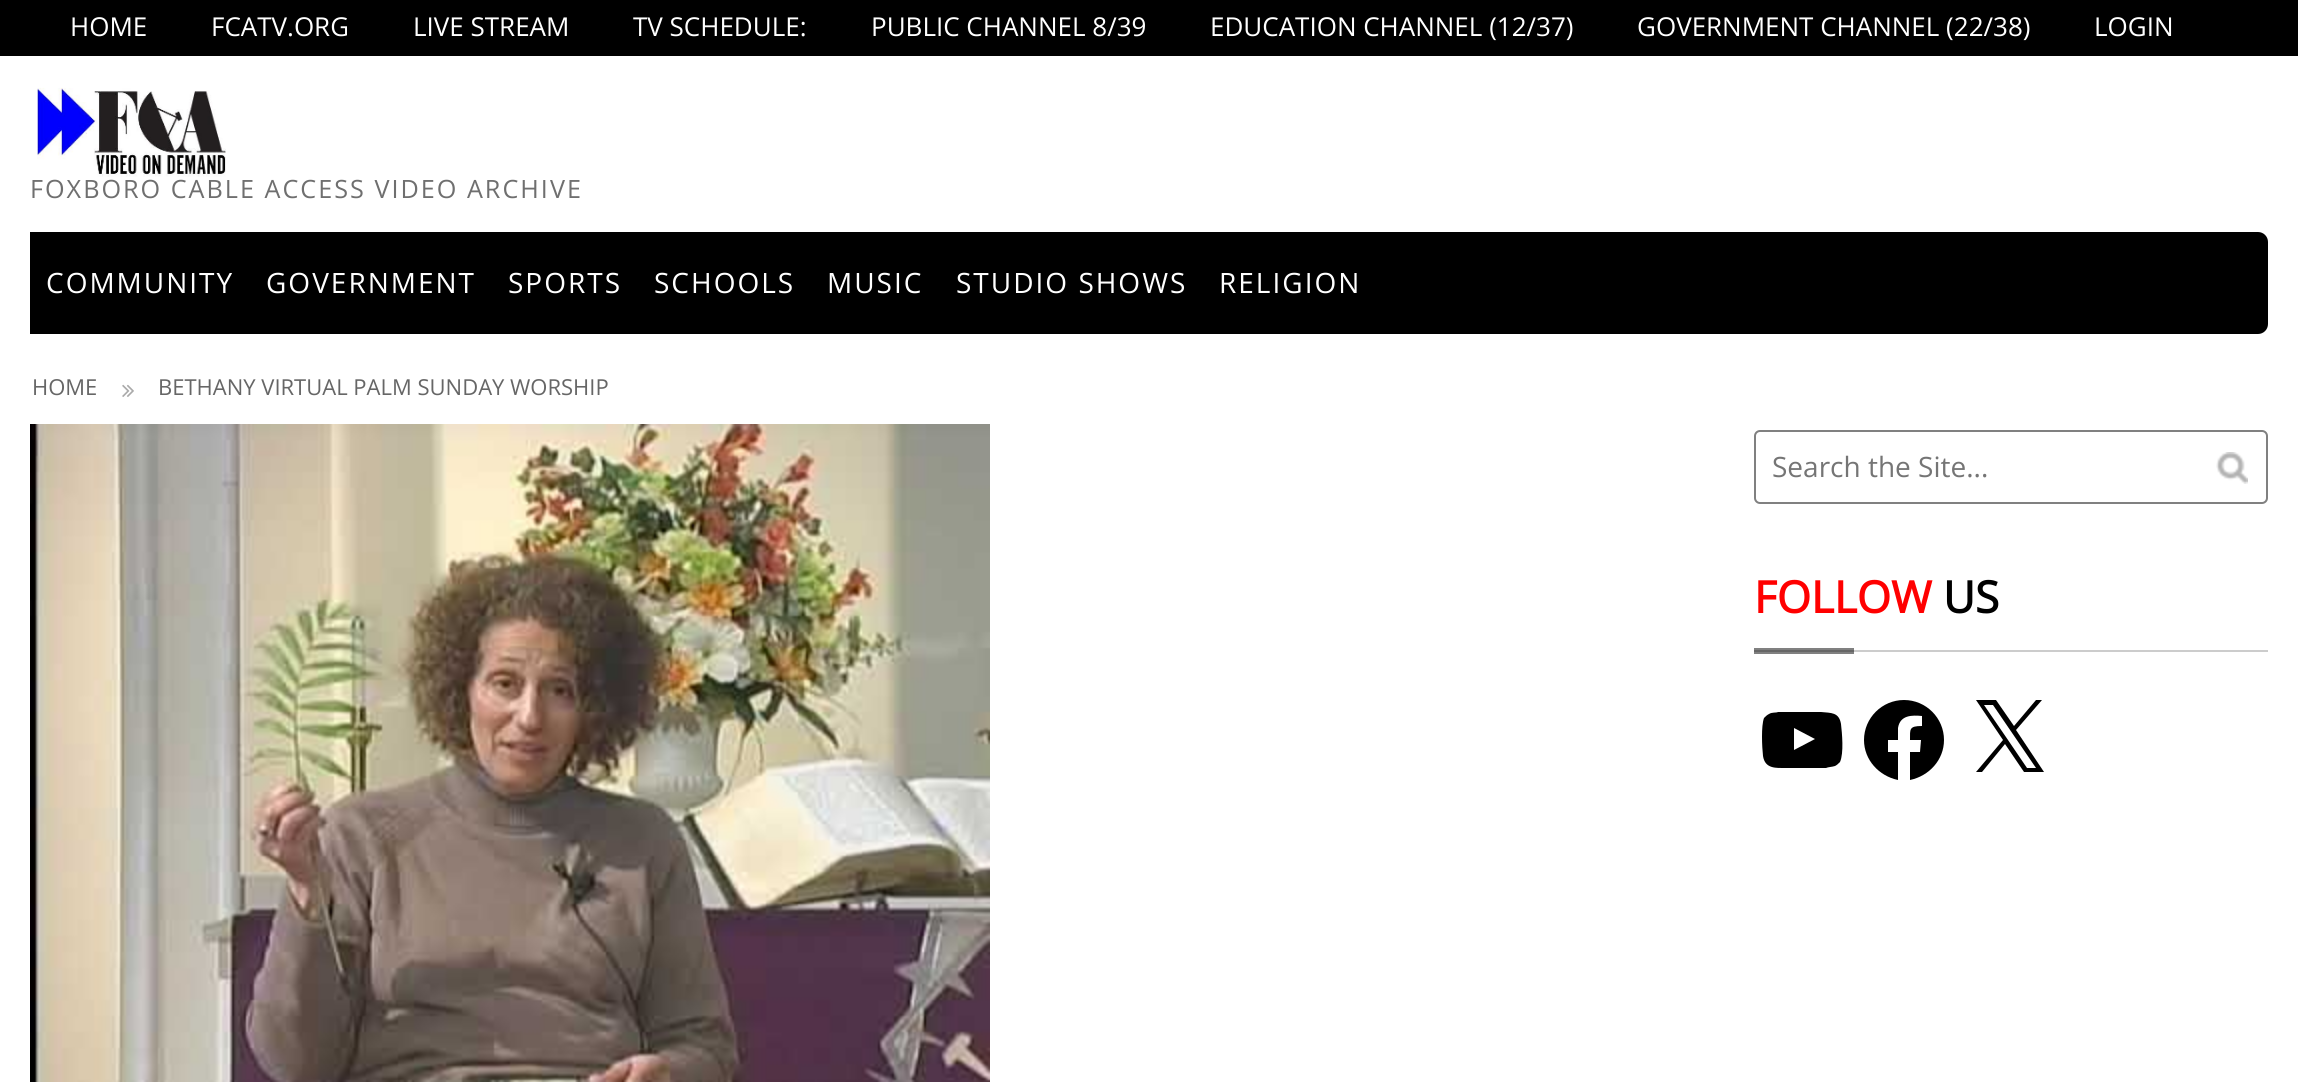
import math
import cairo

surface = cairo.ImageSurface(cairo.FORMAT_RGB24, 2298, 1082)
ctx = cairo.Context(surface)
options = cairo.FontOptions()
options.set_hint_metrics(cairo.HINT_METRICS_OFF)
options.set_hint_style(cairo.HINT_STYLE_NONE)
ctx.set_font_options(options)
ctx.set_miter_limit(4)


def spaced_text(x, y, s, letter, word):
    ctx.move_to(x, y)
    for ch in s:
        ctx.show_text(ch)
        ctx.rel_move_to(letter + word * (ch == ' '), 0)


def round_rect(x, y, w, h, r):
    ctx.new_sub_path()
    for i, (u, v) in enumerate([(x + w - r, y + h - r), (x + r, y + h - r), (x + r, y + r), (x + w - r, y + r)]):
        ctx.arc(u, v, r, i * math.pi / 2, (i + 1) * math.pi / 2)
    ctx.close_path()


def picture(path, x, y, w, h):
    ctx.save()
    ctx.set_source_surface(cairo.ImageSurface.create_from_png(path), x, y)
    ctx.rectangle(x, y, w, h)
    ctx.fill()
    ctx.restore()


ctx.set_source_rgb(1, 1, 1)
ctx.paint()
ctx.set_source_rgb(0.502, 0.502, 0.502)
ctx.rectangle(1754, 648, 100, 6)
ctx.fill()
ctx.set_source_rgb(0, 0, 0)
ctx.rectangle(0, 0, 2298, 56)
ctx.fill()
ctx.select_font_face("Open Sans")
ctx.set_font_size(26)
ctx.set_source_rgb(1, 1, 1)
ctx.move_to(70, 36)
ctx.show_text("HOME")
ctx.move_to(211, 36)
ctx.show_text("FCATV.ORG")
ctx.move_to(413, 36)
ctx.show_text("LIVE STREAM")
ctx.move_to(633, 36)
ctx.show_text("TV SCHEDULE:")
ctx.move_to(871, 36)
ctx.show_text("PUBLIC CHANNEL 8/39")
ctx.move_to(1210, 36)
ctx.show_text("EDUCATION CHANNEL (12/37)")
ctx.move_to(1637, 36)
ctx.show_text("GOVERNMENT CHANNEL (22/38)")
ctx.move_to(2094, 36)
ctx.show_text("LOGIN")
picture("img1.png", 37, 87, 189, 90)
ctx.set_font_size(25.2)
ctx.set_source_rgb(0.435, 0.435, 0.435)
spaced_text(30, 198, "FOXBORO CABLE ACCESS VIDEO ARCHIVE", 2, 0)
ctx.set_source_rgb(0, 0, 0)
round_rect(30, 232, 2238, 102, 10)
ctx.fill()
ctx.rectangle(30, 232, 10, 102)
ctx.fill()
ctx.set_font_size(28)
ctx.set_source_rgb(1, 1, 1)
spaced_text(46, 293, "COMMUNITY", 2, 0)
spaced_text(266, 293, "GOVERNMENT", 2, 0)
spaced_text(508, 293, "SPORTS", 2, 0)
spaced_text(654, 293, "SCHOOLS", 2, 0)
spaced_text(827, 293, "MUSIC", 2, 0)
spaced_text(956, 293, "STUDIO SHOWS", 2, 0)
spaced_text(1219, 293, "RELIGION", 2, 0)
ctx.set_font_size(22)
ctx.set_source_rgb(0.4, 0.4, 0.4)
ctx.move_to(32, 395)
ctx.show_text("HOME")
picture("img2.png", 122, 384, 12, 13)
ctx.move_to(158, 395)
ctx.show_text("BETHANY VIRTUAL PALM SUNDAY WORSHIP")
picture("img3.png", 30, 424, 960, 658)
round_rect(1755, 431, 512, 72, 5)
ctx.set_source_rgb(0.502, 0.502, 0.502)
ctx.stroke()
ctx.set_font_size(28)
ctx.set_source_rgb(0.459, 0.459, 0.459)
ctx.move_to(1772, 477)
ctx.show_text("Search the Site...")
picture("img4.png", 2216, 452, 32, 32)
ctx.set_source_rgb(0.8, 0.8, 0.8)
ctx.rectangle(1854, 650, 414, 2)
ctx.fill()
ctx.set_source_rgb(0.4, 0.4, 0.4)
ctx.rectangle(1754, 650, 100, 2)
ctx.fill()
ctx.select_font_face("Open Sans", cairo.FONT_SLANT_NORMAL, cairo.FONT_WEIGHT_BOLD)
ctx.set_font_size(44)
ctx.set_source_rgb(1, 0, 0)
ctx.move_to(1754, 613)
ctx.show_text("FOLLOW")
ctx.set_source_rgb(0, 0, 0)
ctx.move_to(1943, 613)
ctx.show_text("US")
ctx.new_path()
ctx.move_to(1841, 724)
ctx.curve_to(1839, 712, 1831, 713, 1821, 712)
ctx.line_to(1796, 712)
ctx.line_to(1778, 712)
ctx.curve_to(1776, 713, 1772, 712, 1769, 714)
ctx.curve_to(1767, 715, 1766, 716, 1764, 718)
ctx.curve_to(1761, 726, 1762, 747, 1763, 756)
ctx.curve_to(1765, 769, 1776, 768, 1786, 768)
ctx.line_to(1808, 768)
ctx.line_to(1826, 768)
ctx.curve_to(1828, 767, 1832, 767, 1835, 766)
ctx.curve_to(1837, 765, 1838, 764, 1840, 762)
ctx.curve_to(1844, 753, 1842, 733, 1841, 724)
ctx.close_path()
ctx.move_to(1794, 750)
ctx.line_to(1794, 728)
ctx.line_to(1815, 739)
ctx.close_path()
ctx.fill()
ctx.new_path()
ctx.move_to(1904, 700)
ctx.curve_to(1882, 700, 1864, 718, 1864, 740)
ctx.curve_to(1864, 760, 1879, 776, 1898, 780)
ctx.line_to(1898, 752)
ctx.line_to(1888, 752)
ctx.line_to(1888, 740)
ctx.line_to(1898, 740)
ctx.line_to(1898, 728)
ctx.curve_to(1900, 715, 1912, 715, 1922, 716)
ctx.line_to(1922, 726)
ctx.curve_to(1909, 726, 1910, 729, 1910, 740)
ctx.line_to(1921, 740)
ctx.line_to(1920, 752)
ctx.line_to(1910, 752)
ctx.line_to(1910, 780)
ctx.curve_to(1929, 776, 1944, 760, 1944, 740)
ctx.curve_to(1944, 718, 1926, 700, 1904, 700)
ctx.close_path()
ctx.fill()
ctx.new_path()
ctx.move_to(2016, 730)
ctx.line_to(2042, 700)
ctx.line_to(2036, 700)
ctx.line_to(2014, 726)
ctx.line_to(1996, 700)
ctx.line_to(1976, 700)
ctx.line_to(2003, 740)
ctx.line_to(1976, 772)
ctx.line_to(1982, 772)
ctx.line_to(2005, 744)
ctx.line_to(2024, 772)
ctx.line_to(2044, 772)
ctx.close_path()
ctx.move_to(2008, 740)
ctx.line_to(1984, 705)
ctx.line_to(1993, 705)
ctx.line_to(2036, 768)
ctx.line_to(2027, 768)
ctx.close_path()
ctx.fill()
surface.write_to_png("page.png")
